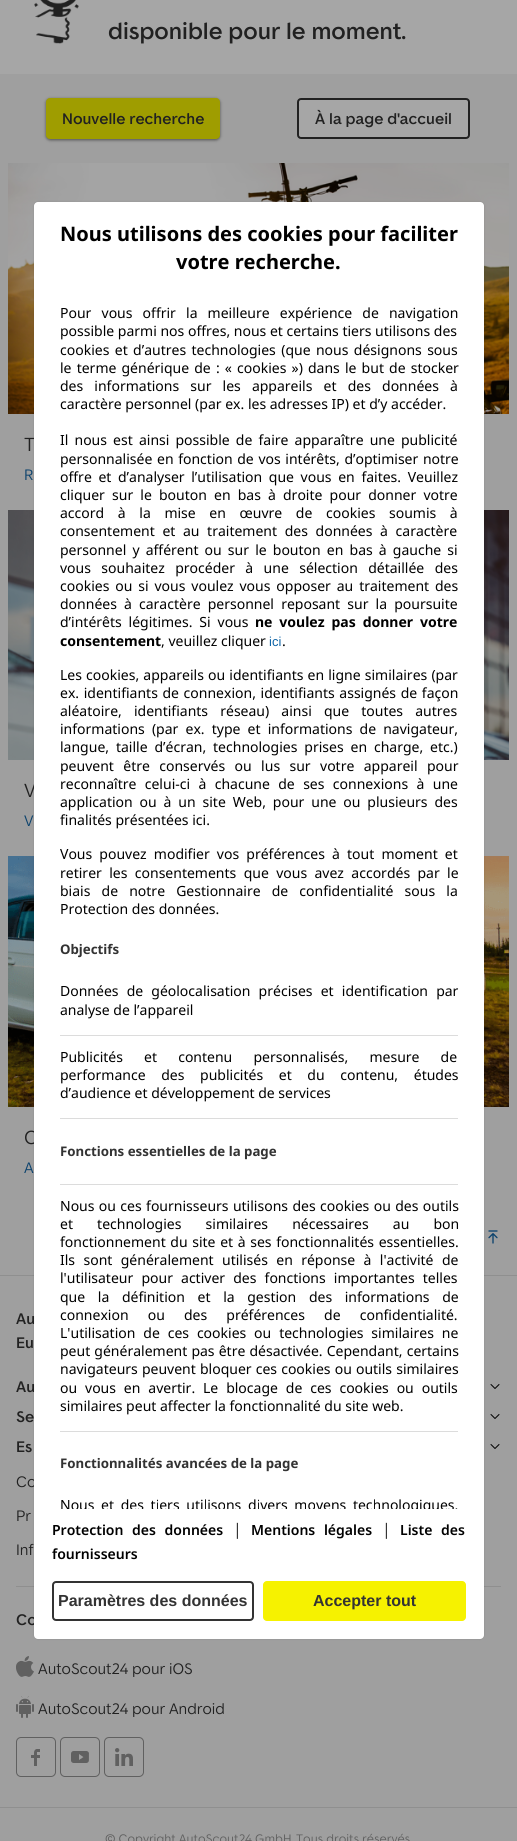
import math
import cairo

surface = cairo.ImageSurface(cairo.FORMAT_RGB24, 517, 1841)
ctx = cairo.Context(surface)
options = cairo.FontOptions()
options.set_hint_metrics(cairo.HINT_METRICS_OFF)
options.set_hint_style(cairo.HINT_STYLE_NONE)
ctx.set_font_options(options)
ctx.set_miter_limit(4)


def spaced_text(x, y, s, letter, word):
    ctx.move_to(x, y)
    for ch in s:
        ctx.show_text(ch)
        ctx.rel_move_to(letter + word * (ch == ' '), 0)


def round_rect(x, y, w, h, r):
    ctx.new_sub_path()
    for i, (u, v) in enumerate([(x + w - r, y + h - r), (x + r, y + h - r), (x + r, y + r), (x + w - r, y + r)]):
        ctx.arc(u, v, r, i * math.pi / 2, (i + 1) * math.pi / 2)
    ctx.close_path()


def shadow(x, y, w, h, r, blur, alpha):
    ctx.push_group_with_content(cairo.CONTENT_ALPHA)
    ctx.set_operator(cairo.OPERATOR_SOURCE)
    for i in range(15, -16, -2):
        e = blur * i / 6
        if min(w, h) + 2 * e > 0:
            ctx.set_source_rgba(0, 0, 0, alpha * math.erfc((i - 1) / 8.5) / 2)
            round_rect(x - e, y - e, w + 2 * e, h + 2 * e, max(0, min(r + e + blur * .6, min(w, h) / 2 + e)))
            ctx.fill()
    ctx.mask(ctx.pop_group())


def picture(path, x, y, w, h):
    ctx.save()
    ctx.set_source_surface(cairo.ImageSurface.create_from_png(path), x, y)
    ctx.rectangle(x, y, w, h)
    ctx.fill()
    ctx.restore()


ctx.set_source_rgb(0.624, 0.624, 0.624)
ctx.paint()
ctx.set_source_rgb(0.651, 0.651, 0.651)
ctx.rectangle(0, 0, 517, 74)
ctx.fill()
picture("img1.png", 34, 0, 45, 44)
ctx.select_font_face("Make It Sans", cairo.FONT_SLANT_NORMAL, cairo.FONT_WEIGHT_BOLD)
ctx.set_font_size(24)
ctx.set_source_rgb(0.129, 0.129, 0.129)
ctx.move_to(108, 39)
ctx.show_text("disponible pour le moment.")
ctx.set_source_rgb(0, 0, 0)
shadow(46, 99, 174, 41, 4, 1.5, 0.5)
ctx.set_source_rgb(0.624, 0.616, 0)
round_rect(46, 98, 174, 41, 4)
ctx.fill()
ctx.set_font_size(16)
ctx.set_source_rgb(0.129, 0.129, 0.129)
ctx.move_to(62, 124)
ctx.show_text("Nouvelle recherche")
ctx.set_source_rgb(0.651, 0.651, 0.651)
round_rect(298, 99, 171, 39, 3)
ctx.fill_preserve()
ctx.set_source_rgb(0.129, 0.129, 0.129)
ctx.stroke()
ctx.move_to(315, 124)
ctx.show_text("À la page d'accueil")
picture("img2.png", 8, 163, 501, 251)
ctx.select_font_face("Make It Sans")
ctx.set_font_size(20)
ctx.move_to(24, 451)
ctx.show_text("T")
ctx.set_font_size(16)
ctx.set_source_rgb(0.043, 0.259, 0.427)
ctx.move_to(24, 480)
ctx.show_text("R")
picture("img3.png", 8, 510, 501, 250)
ctx.set_font_size(20)
ctx.set_source_rgb(0.129, 0.129, 0.129)
ctx.move_to(24, 797)
ctx.show_text("V")
ctx.set_font_size(16)
ctx.set_source_rgb(0.043, 0.259, 0.427)
ctx.move_to(24, 826)
ctx.show_text("V")
picture("img4.png", 8, 856, 501, 251)
ctx.set_font_size(20)
ctx.set_source_rgb(0.129, 0.129, 0.129)
ctx.move_to(24, 1144)
ctx.show_text("C")
ctx.set_font_size(16)
ctx.set_source_rgb(0.043, 0.259, 0.427)
ctx.move_to(24, 1173)
ctx.show_text("A")
picture("img5.png", 488, 1230, 10, 14)
ctx.set_source_rgb(0.561, 0.561, 0.561)
ctx.rectangle(0, 1275, 517, 1)
ctx.fill()
ctx.rectangle(16, 1586, 485, 1)
ctx.fill()
ctx.set_source_rgb(0, 0, 0)
shadow(34, 202, 450, 1437, 4, 1, 0.12)
ctx.set_source_rgb(0.129, 0.129, 0.129)
ctx.move_to(16, 1487)
ctx.show_text("Co")
ctx.select_font_face("Make It Sans", cairo.FONT_SLANT_NORMAL, cairo.FONT_WEIGHT_BOLD)
ctx.move_to(16, 1625)
ctx.show_text("Co")
ctx.set_source_rgb(1, 1, 1)
round_rect(34, 202, 450, 1437, 4)
ctx.fill()
ctx.select_font_face("Noto Sans", cairo.FONT_SLANT_NORMAL, cairo.FONT_WEIGHT_BOLD)
ctx.set_font_size(20)
ctx.set_source_rgb(0, 0, 0)
ctx.move_to(60, 241)
ctx.show_text("Nous utilisons des cookies pour faciliter")
ctx.move_to(176, 269)
ctx.show_text("votre recherche.")
ctx.select_font_face("Noto Sans")
ctx.set_font_size(14)
spaced_text(60, 318, "Pour vous offrir la meilleure expérience de navigation", 0, 6.5)
ctx.move_to(60, 336)
ctx.show_text("possible parmi nos offres, nous et certains tiers utilisons des")
spaced_text(60, 355, "cookies et d’autres technologies (que nous désignons sous", 0, 1.75)
spaced_text(60, 373, "le terme générique de : « cookies ») dans le but de stocker", 0, 1.5)
spaced_text(60, 391, "des informations sur les appareils et des données à", 0, 7.5)
ctx.move_to(60, 409)
ctx.show_text("caractère personnel (par ex. les adresses IP) et d’y accéder.")
spaced_text(60, 445, "Il nous est ainsi possible de faire apparaître une publicité", 0, 2.5)
spaced_text(60, 464, "personnalisée en fonction de vos intérêts, d’optimiser notre", 0, 1)
spaced_text(60, 482, "offre et d’analyser l’utilisation que vous en faites. Veuillez", 0, 3)
spaced_text(60, 500, "cliquer sur le bouton en bas à droite pour donner votre", 0, 3.5)
spaced_text(60, 518, "accord à la mise en œuvre de cookies soumis à", 0, 10)
spaced_text(60, 536, "consentement et au traitement des données à caractère", 0, 4)
spaced_text(60, 555, "personnel y afférent ou sur le bouton en bas à gauche si", 0, 2.5)
spaced_text(60, 573, "vous souhaitez procéder à une sélection détaillée des", 0, 6.75)
spaced_text(60, 591, "cookies ou si vous voulez vous opposer au traitement des", 0, 2.25)
spaced_text(60, 609, "données à caractère personnel reposant sur la poursuite", 0, 3.5)
spaced_text(60, 627, "d’intérêts légitimes. Si vous", 0, 3.25)
ctx.select_font_face("Noto Sans", cairo.FONT_SLANT_NORMAL, cairo.FONT_WEIGHT_BOLD)
spaced_text(255, 627, "ne voulez pas donner votre", 0, 3.25)
ctx.move_to(60, 646)
ctx.show_text("consentement")
ctx.select_font_face("Noto Sans")
ctx.move_to(161, 646)
ctx.show_text(", veuillez cliquer")
ctx.select_font_face("Liberation Sans")
ctx.set_font_size(13)
ctx.set_source_rgb(0.067, 0.4, 0.659)
ctx.move_to(269, 646)
ctx.show_text("ici")
ctx.select_font_face("Noto Sans")
ctx.set_font_size(14)
ctx.set_source_rgb(0, 0, 0)
ctx.move_to(282, 646)
ctx.show_text(".")
spaced_text(60, 680, "Les cookies, appareils ou identifiants en ligne similaires (par", 0, 0.5)
spaced_text(60, 698, "ex. identifiants de connexion, identifiants assignés de façon", 0, 1)
spaced_text(60, 716, "aléatoire, identifiants réseau) ainsi que toutes autres", 0, 8.5)
spaced_text(60, 734, "informations (par ex. type et informations de navigateur,", 0, 3.5)
spaced_text(60, 752, "langue, taille d’écran, technologies prises en charge, etc.)", 0, 3.25)
spaced_text(60, 771, "peuvent être conservés ou lus sur votre appareil pour", 0, 5.75)
spaced_text(60, 789, "reconnaître celui-ci à chacune de ses connexions à une", 0, 4.75)
spaced_text(60, 807, "application ou à un site Web, pour une ou plusieurs des", 0, 3.25)
ctx.move_to(60, 825)
ctx.show_text("finalités présentées ici.")
spaced_text(60, 859, "Vous pouvez modifier vos préférences à tout moment et", 0, 3.5)
spaced_text(60, 878, "retirer les consentements que vous avez accordés par le", 0, 3.75)
spaced_text(60, 896, "biais de notre Gestionnaire de confidentialité sous la", 0, 7.5)
ctx.move_to(60, 914)
ctx.show_text("Protection des données.")
ctx.select_font_face("Noto Sans", cairo.FONT_SLANT_NORMAL, cairo.FONT_WEIGHT_BOLD)
ctx.set_font_size(13.25)
ctx.set_source_rgb(0.2, 0.2, 0.2)
ctx.move_to(60, 954)
ctx.show_text("Objectifs")
ctx.select_font_face("Noto Sans")
ctx.set_font_size(14)
ctx.set_source_rgb(0, 0, 0)
spaced_text(60, 996, "Données de géolocalisation précises et identification par", 0, 4.5)
ctx.move_to(60, 1015)
ctx.show_text("analyse de l’appareil")
ctx.set_source_rgb(0.863, 0.863, 0.863)
ctx.rectangle(60, 1035, 398, 1)
ctx.fill()
ctx.set_source_rgb(0, 0, 0)
spaced_text(60, 1062, "Publicités et contenu personnalisés, mesure de", 0, 17.5)
spaced_text(60, 1080, "performance des publicités et du contenu, études", 0, 12)
ctx.move_to(60, 1098)
ctx.show_text("d’audience et développement de services")
ctx.set_source_rgb(0.863, 0.863, 0.863)
ctx.rectangle(60, 1118, 398, 1)
ctx.fill()
ctx.select_font_face("Noto Sans", cairo.FONT_SLANT_NORMAL, cairo.FONT_WEIGHT_BOLD)
ctx.set_font_size(13.25)
ctx.set_source_rgb(0.2, 0.2, 0.2)
ctx.move_to(60, 1156)
ctx.show_text("Fonctions essentielles de la page")
ctx.set_source_rgb(0.863, 0.863, 0.863)
ctx.rectangle(60, 1184, 398, 1)
ctx.fill()
ctx.select_font_face("Noto Sans")
ctx.set_font_size(14)
ctx.set_source_rgb(0, 0, 0)
spaced_text(60, 1211, "Nous ou ces fournisseurs utilisons des cookies ou des outils", 0, 0.75)
spaced_text(60, 1229, "et technologies similaires nécessaires au bon", 0, 20.5)
spaced_text(60, 1247, "fonctionnement du site et à ses fonctionnalités essentielles.", 0, 1)
spaced_text(60, 1265, "Ils sont généralement utilisés en réponse à l'activité de", 0, 4.75)
spaced_text(60, 1283, "l'utilisateur pour activer des fonctions importantes telles", 0, 4.5)
spaced_text(60, 1302, "que la définition et la gestion des informations de", 0, 9)
spaced_text(60, 1320, "connexion ou des préférences de confidentialité.", 0, 15.5)
spaced_text(60, 1338, "L'utilisation de ces cookies ou technologies similaires ne", 0, 4.25)
spaced_text(60, 1356, "peut généralement pas être désactivée. Cependant, certains", 0, 0.5)
spaced_text(60, 1374, "navigateurs peuvent bloquer ces cookies ou outils similaires", 0, 0.5)
spaced_text(60, 1393, "ou vous en avertir. Le blocage de ces cookies ou outils", 0, 4.25)
ctx.move_to(60, 1411)
ctx.show_text("similaires peut affecter la fonctionnalité du site web.")
ctx.set_source_rgb(0.863, 0.863, 0.863)
ctx.rectangle(60, 1431, 398, 1)
ctx.fill()
ctx.select_font_face("Noto Sans", cairo.FONT_SLANT_NORMAL, cairo.FONT_WEIGHT_BOLD)
ctx.set_font_size(13.25)
ctx.set_source_rgb(0.2, 0.2, 0.2)
ctx.move_to(60, 1468)
ctx.show_text("Fonctionnalités avancées de la page")
ctx.save()
ctx.rectangle(52, 220, 414, 1289)
ctx.clip()
ctx.select_font_face("Noto Sans")
ctx.set_font_size(14)
ctx.set_source_rgb(0, 0, 0)
spaced_text(60, 1510, "Nous et des tiers utilisons divers moyens technologiques,", 0, 3)
ctx.restore()
ctx.select_font_face("Noto Sans SemiBold")
ctx.set_font_size(14)
ctx.set_source_rgb(0, 0, 0)
spaced_text(52, 1535, "Protection des données", 0, 5)
ctx.select_font_face("Noto Sans")
ctx.set_font_size(16)
ctx.set_source_rgb(0.2, 0.2, 0.2)
ctx.move_to(233, 1535)
ctx.show_text("|")
ctx.select_font_face("Noto Sans SemiBold")
ctx.set_font_size(14)
ctx.set_source_rgb(0, 0, 0)
spaced_text(251, 1535, "Mentions légales", 0, 5)
ctx.select_font_face("Noto Sans")
ctx.set_font_size(16)
ctx.set_source_rgb(0.2, 0.2, 0.2)
ctx.move_to(382, 1535)
ctx.show_text("|")
ctx.select_font_face("Noto Sans SemiBold")
ctx.set_font_size(14)
ctx.set_source_rgb(0, 0, 0)
spaced_text(400, 1535, "Liste des", 0, 5)
ctx.move_to(52, 1559)
ctx.show_text("fournisseurs")
round_rect(53, 1582, 200, 38, 3)
ctx.set_source_rgb(0.2, 0.2, 0.2)
ctx.stroke()
ctx.select_font_face("Liberation Sans", cairo.FONT_SLANT_NORMAL, cairo.FONT_WEIGHT_BOLD)
ctx.set_font_size(16)
ctx.move_to(58, 1606)
ctx.show_text("Paramètres des données")
ctx.set_source_rgb(0.961, 0.949, 0)
round_rect(263, 1581, 203, 40, 4)
ctx.fill()
ctx.set_source_rgb(0.2, 0.2, 0.2)
ctx.move_to(313, 1606)
ctx.show_text("Accepter tout")
ctx.select_font_face("Make It Sans", cairo.FONT_SLANT_NORMAL, cairo.FONT_WEIGHT_BOLD)
ctx.set_source_rgb(0.129, 0.129, 0.129)
ctx.move_to(16, 1324)
ctx.show_text("Au")
ctx.move_to(16, 1348)
ctx.show_text("Eu")
ctx.move_to(16, 1392)
ctx.show_text("Au")
picture("img6.png", 490, 1384, 10, 5)
ctx.move_to(16, 1422)
ctx.show_text("Se")
picture("img6.png", 490, 1414, 10, 5)
ctx.move_to(16, 1452)
ctx.show_text("Es")
picture("img6.png", 490, 1444, 10, 5)
ctx.select_font_face("Make It Sans")
ctx.move_to(16, 1521)
ctx.show_text("Pr")
ctx.move_to(16, 1555)
ctx.show_text("Inf")
picture("img7.png", 16, 1656, 18, 21)
ctx.move_to(38, 1674)
ctx.show_text("AutoScout24 pour iOS")
picture("img8.png", 16, 1696, 18, 22)
ctx.move_to(38, 1714)
ctx.show_text("AutoScout24 pour Android")
round_rect(16.5, 1737.5, 39, 39, 4.5)
ctx.set_source_rgb(0.376, 0.376, 0.376)
ctx.set_line_width(1)
ctx.stroke()
picture("img9.png", 31, 1749, 9, 17)
round_rect(60.5, 1737.5, 39, 39, 4.5)
ctx.stroke()
picture("img10.png", 71, 1751, 18, 12)
round_rect(104.5, 1737.5, 39, 39, 4.5)
ctx.stroke()
picture("img11.png", 115, 1748, 18, 18)
ctx.set_source_rgb(0.561, 0.561, 0.561)
ctx.rectangle(0, 1807, 517, 1)
ctx.fill()
ctx.set_font_size(13)
ctx.set_source_rgb(0.376, 0.376, 0.376)
ctx.move_to(105, 1843)
ctx.show_text("© Copyright AutoScout24 GmbH")
ctx.move_to(296, 1843)
ctx.show_text("Tous droits réservés")
surface.write_to_png("page.png")
